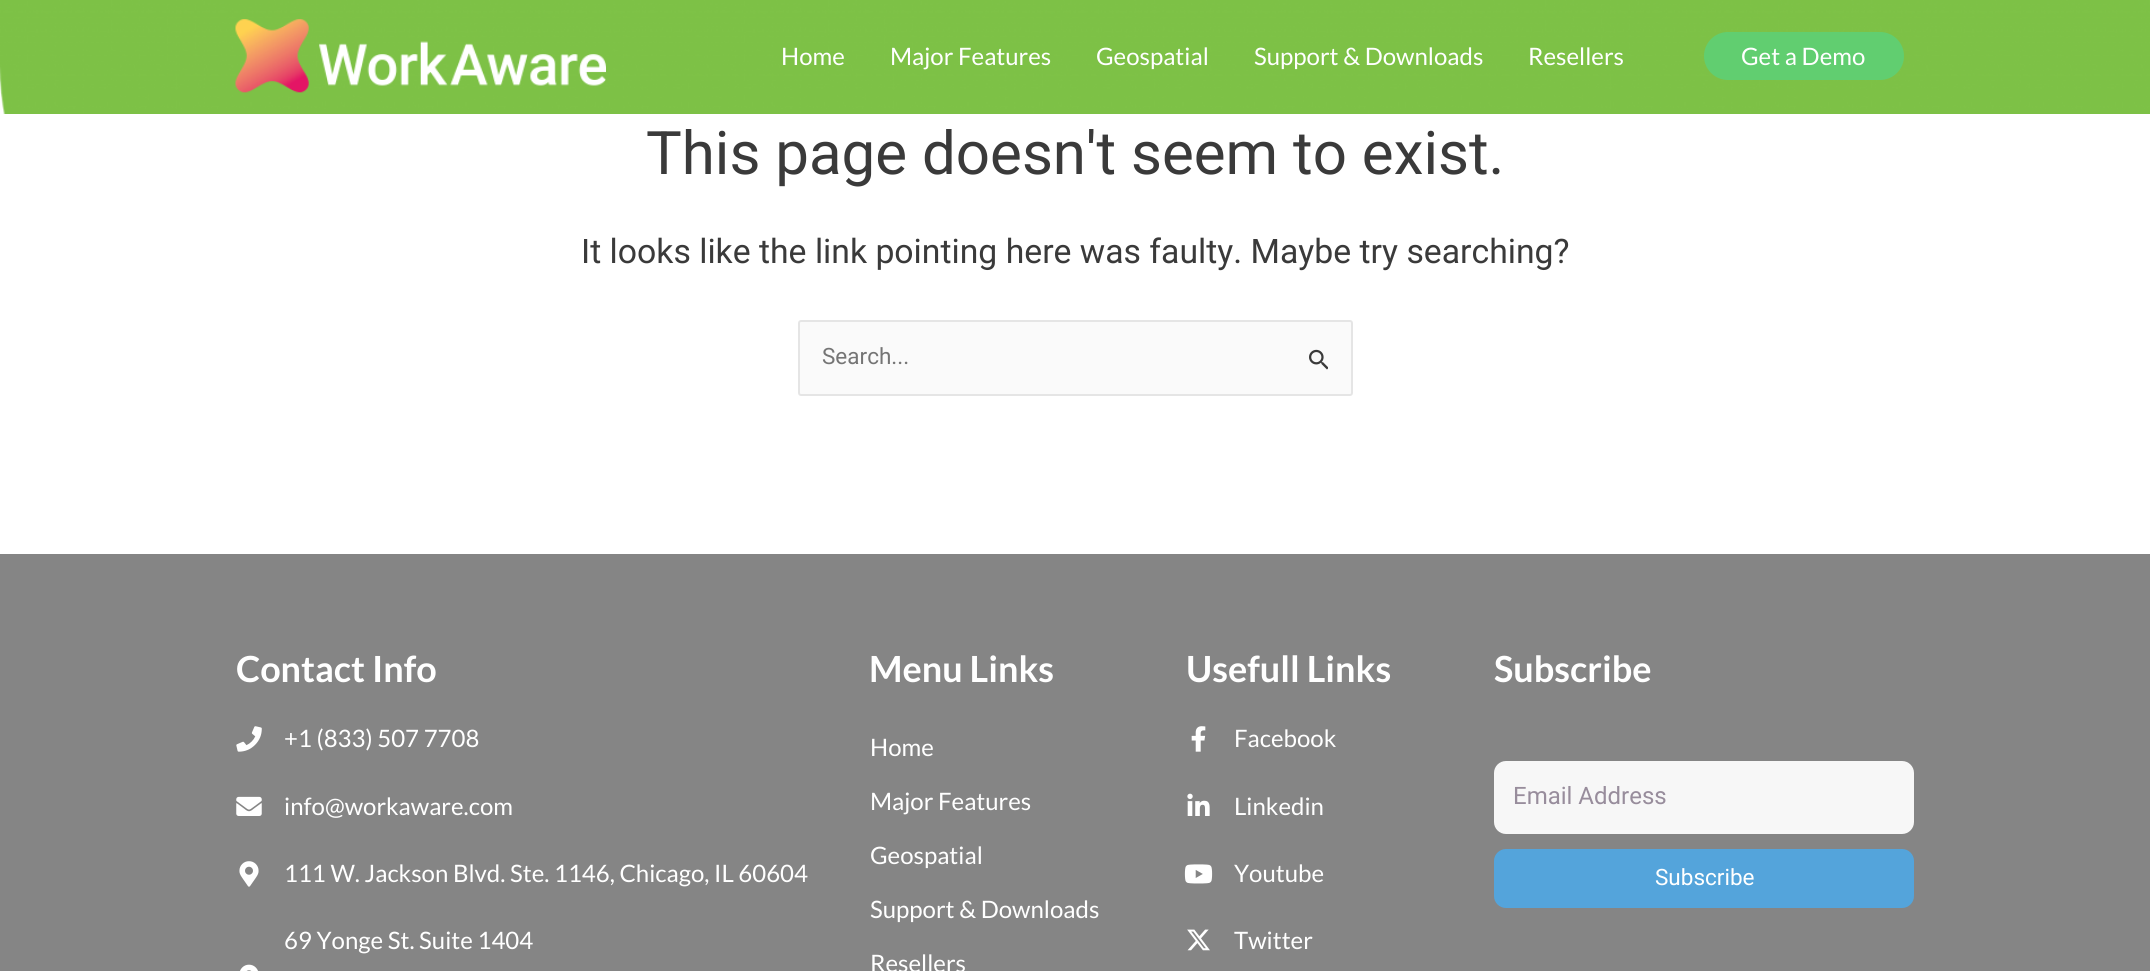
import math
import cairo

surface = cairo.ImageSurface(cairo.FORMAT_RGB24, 2150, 971)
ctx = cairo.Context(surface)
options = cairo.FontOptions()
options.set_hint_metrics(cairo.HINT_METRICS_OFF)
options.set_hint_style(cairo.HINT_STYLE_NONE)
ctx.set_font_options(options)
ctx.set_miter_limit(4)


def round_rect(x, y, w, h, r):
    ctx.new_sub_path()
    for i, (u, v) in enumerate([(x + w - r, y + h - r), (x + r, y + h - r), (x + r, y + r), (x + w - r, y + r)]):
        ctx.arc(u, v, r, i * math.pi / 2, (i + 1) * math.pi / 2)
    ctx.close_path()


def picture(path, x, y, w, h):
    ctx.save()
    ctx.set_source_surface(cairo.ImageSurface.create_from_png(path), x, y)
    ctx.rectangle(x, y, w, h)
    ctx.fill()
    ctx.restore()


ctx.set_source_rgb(1, 1, 1)
ctx.paint()
picture("img1.png", 0, 0, 2150, 114)
picture("img2.png", 235, 19, 371, 74)
ctx.select_font_face("Lato")
ctx.set_font_size(24)
ctx.set_source_rgb(1, 1, 1)
ctx.move_to(781, 65)
ctx.show_text("Home")
ctx.move_to(890, 65)
ctx.show_text("Major Features")
ctx.move_to(1096, 65)
ctx.show_text("Geospatial")
ctx.move_to(1254, 65)
ctx.show_text("Support & Downloads")
ctx.move_to(1528, 65)
ctx.show_text("Resellers")
ctx.set_source_rgb(0.38, 0.808, 0.439)
round_rect(1704, 32, 200, 48, 24)
ctx.fill()
ctx.set_source_rgb(1, 1, 1)
ctx.move_to(1741, 65)
ctx.show_text("Get a Demo")
ctx.select_font_face("Roboto")
ctx.set_font_size(60)
ctx.set_source_rgb(0.227, 0.227, 0.227)
ctx.move_to(646, 174)
ctx.show_text("This page doesn't seem to exist.")
ctx.set_font_size(33.75)
ctx.move_to(581, 263)
ctx.show_text("It looks like the link pointing here was faulty. Maybe try searching?")
ctx.set_source_rgb(0.98, 0.98, 0.98)
round_rect(799, 321, 553, 74, 2)
ctx.fill_preserve()
ctx.set_source_rgb(0.898, 0.898, 0.898)
ctx.stroke()
ctx.set_font_size(22.5)
ctx.set_source_rgb(0.459, 0.459, 0.459)
ctx.move_to(822, 364)
ctx.show_text("Search...")
picture("img3.png", 1309, 349, 19, 21)
ctx.set_source_rgb(0.522, 0.522, 0.522)
ctx.rectangle(0, 554, 2150, 417)
ctx.fill()
ctx.select_font_face("Lato", cairo.FONT_SLANT_NORMAL, cairo.FONT_WEIGHT_BOLD)
ctx.set_font_size(36)
ctx.set_source_rgb(1, 1, 1)
ctx.move_to(236, 682)
ctx.show_text("Contact Info")
picture("img4.png", 236, 726, 26, 26)
ctx.select_font_face("Lato")
ctx.set_font_size(24)
ctx.move_to(284, 747)
ctx.show_text("+1 (833) 507 7708")
picture("img5.png", 236, 796, 26, 20)
ctx.move_to(284, 815)
ctx.show_text("info@workaware.com")
picture("img6.png", 239, 861, 20, 26)
ctx.move_to(284, 882)
ctx.show_text("111 W. Jackson Blvd. Ste. 1146, Chicago, IL 60604")
ctx.move_to(284, 949)
ctx.show_text("69 Yonge St. Suite 1404")
picture("img7.png", 240, 964, 18, 7)
ctx.select_font_face("Lato", cairo.FONT_SLANT_NORMAL, cairo.FONT_WEIGHT_BOLD)
ctx.set_font_size(36)
ctx.move_to(869, 682)
ctx.show_text("Menu Links")
ctx.select_font_face("Lato")
ctx.set_font_size(24)
ctx.move_to(870, 756)
ctx.show_text("Home")
ctx.move_to(870, 810)
ctx.show_text("Major Features")
ctx.move_to(870, 864)
ctx.show_text("Geospatial")
ctx.move_to(870, 918)
ctx.show_text("Support & Downloads")
ctx.move_to(870, 972)
ctx.show_text("Resellers")
ctx.select_font_face("Lato", cairo.FONT_SLANT_NORMAL, cairo.FONT_WEIGHT_BOLD)
ctx.set_font_size(36)
ctx.move_to(1186, 682)
ctx.show_text("Usefull Links")
picture("img8.png", 1191, 726, 15, 26)
ctx.select_font_face("Lato")
ctx.set_font_size(24)
ctx.move_to(1234, 747)
ctx.show_text("Facebook")
picture("img9.png", 1187, 793, 23, 23)
ctx.move_to(1234, 815)
ctx.show_text("Linkedin")
picture("img10.png", 1184, 864, 29, 20)
ctx.move_to(1234, 882)
ctx.show_text("Youtube")
picture("img11.png", 1187, 929, 23, 22)
ctx.move_to(1234, 949)
ctx.show_text("Twitter")
ctx.select_font_face("Lato", cairo.FONT_SLANT_NORMAL, cairo.FONT_WEIGHT_BOLD)
ctx.set_font_size(36)
ctx.move_to(1494, 682)
ctx.show_text("Subscribe")
ctx.set_source_rgb(0.965, 0.965, 0.965)
round_rect(1495, 762, 418, 71, 11)
ctx.fill_preserve()
ctx.stroke()
ctx.select_font_face("Roboto")
ctx.set_font_size(24)
ctx.set_source_rgb(0.596, 0.553, 0.612)
ctx.move_to(1513, 804)
ctx.show_text("Email Address")
ctx.set_source_rgb(0.329, 0.643, 0.859)
round_rect(1494, 849, 420, 59, 12)
ctx.fill()
ctx.set_font_size(22.5)
ctx.set_source_rgb(1, 1, 1)
ctx.move_to(1655, 885)
ctx.show_text("Subscribe")
surface.write_to_png("page.png")
